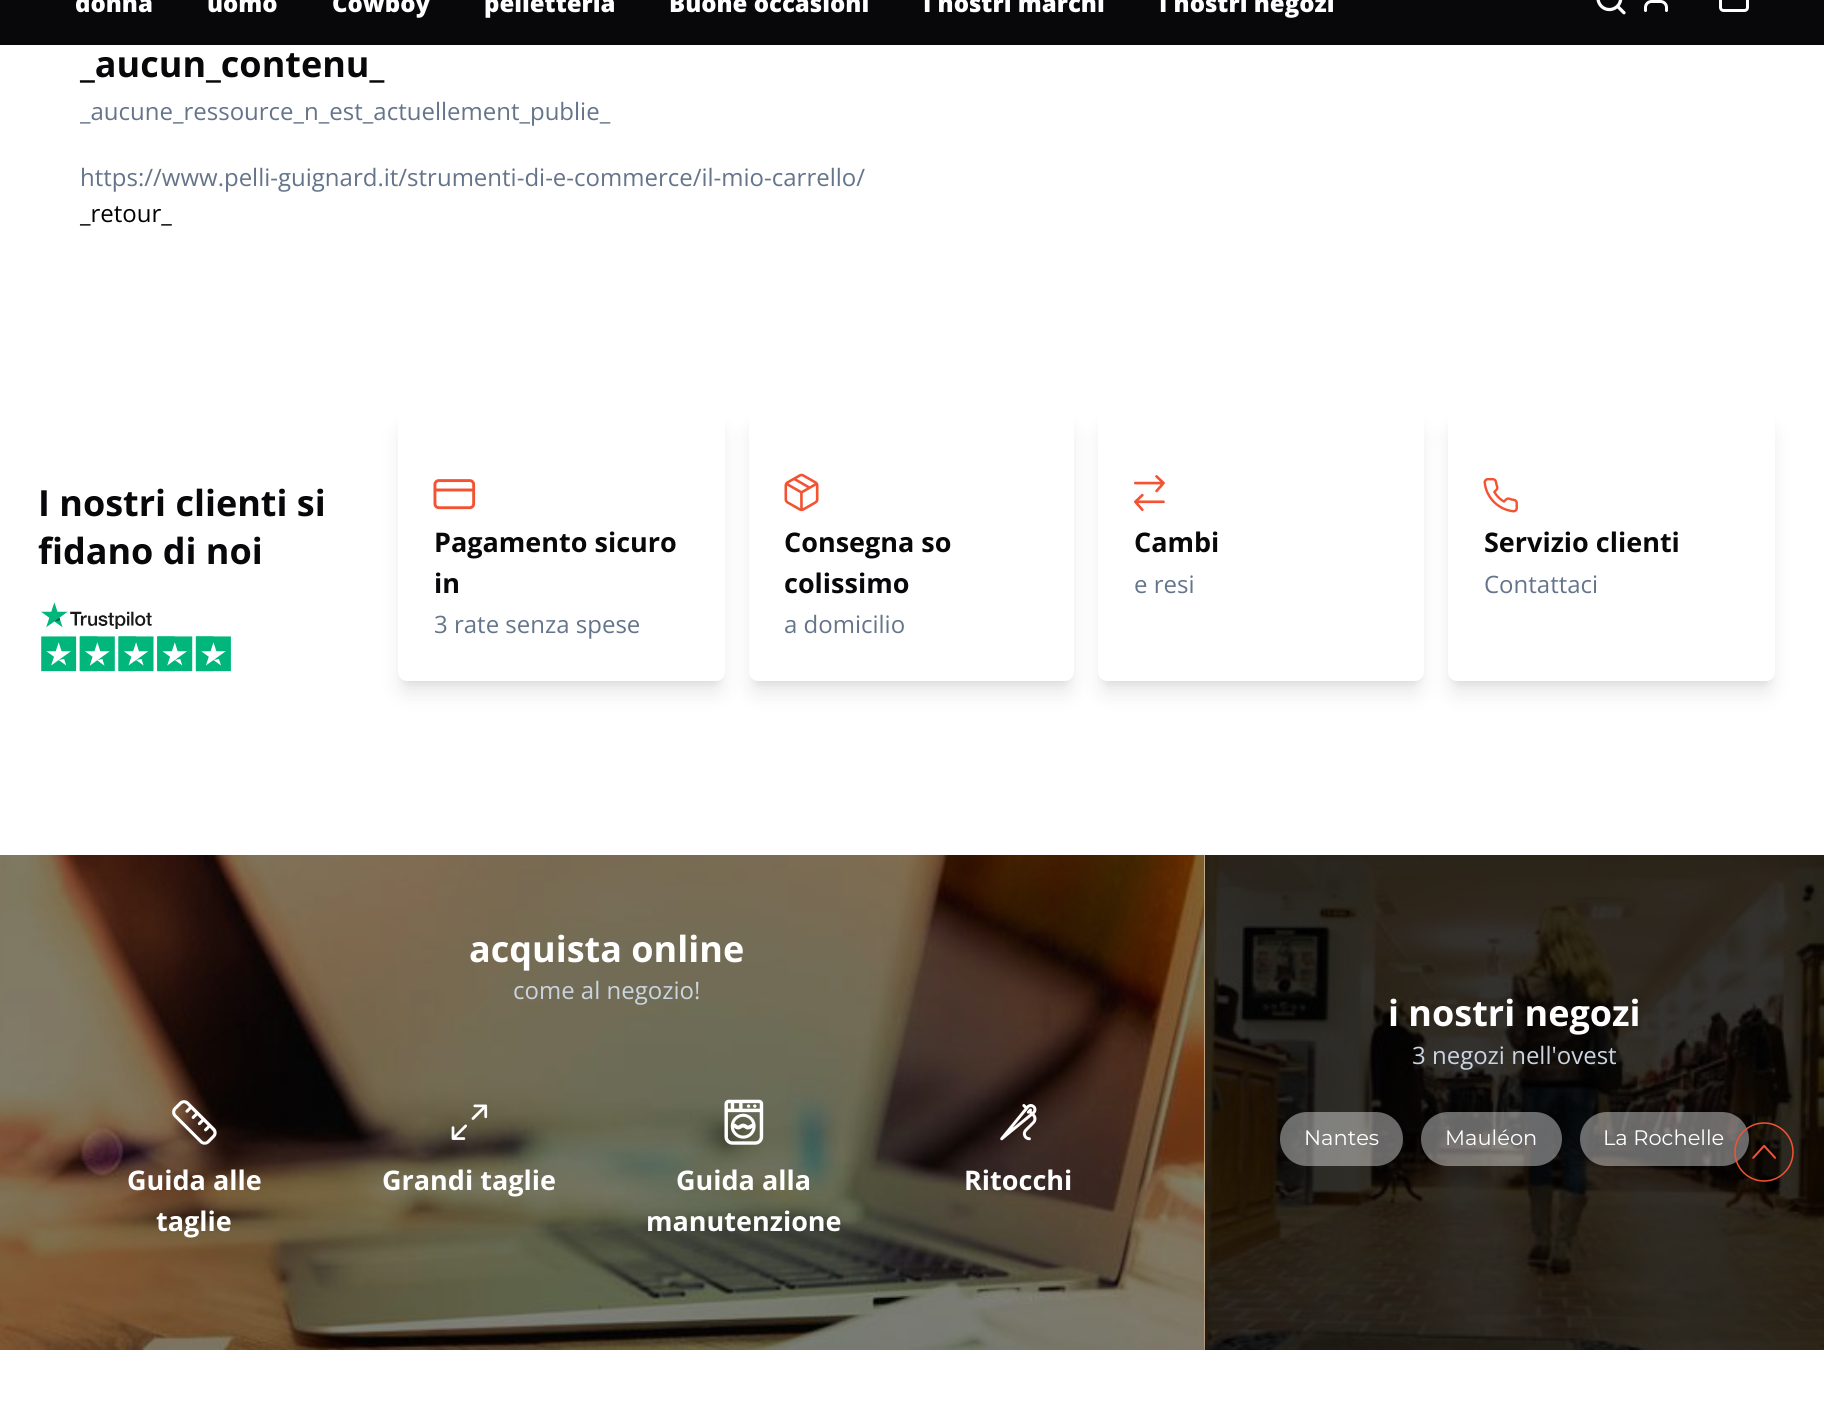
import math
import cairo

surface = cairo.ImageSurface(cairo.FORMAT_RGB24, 1824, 1422)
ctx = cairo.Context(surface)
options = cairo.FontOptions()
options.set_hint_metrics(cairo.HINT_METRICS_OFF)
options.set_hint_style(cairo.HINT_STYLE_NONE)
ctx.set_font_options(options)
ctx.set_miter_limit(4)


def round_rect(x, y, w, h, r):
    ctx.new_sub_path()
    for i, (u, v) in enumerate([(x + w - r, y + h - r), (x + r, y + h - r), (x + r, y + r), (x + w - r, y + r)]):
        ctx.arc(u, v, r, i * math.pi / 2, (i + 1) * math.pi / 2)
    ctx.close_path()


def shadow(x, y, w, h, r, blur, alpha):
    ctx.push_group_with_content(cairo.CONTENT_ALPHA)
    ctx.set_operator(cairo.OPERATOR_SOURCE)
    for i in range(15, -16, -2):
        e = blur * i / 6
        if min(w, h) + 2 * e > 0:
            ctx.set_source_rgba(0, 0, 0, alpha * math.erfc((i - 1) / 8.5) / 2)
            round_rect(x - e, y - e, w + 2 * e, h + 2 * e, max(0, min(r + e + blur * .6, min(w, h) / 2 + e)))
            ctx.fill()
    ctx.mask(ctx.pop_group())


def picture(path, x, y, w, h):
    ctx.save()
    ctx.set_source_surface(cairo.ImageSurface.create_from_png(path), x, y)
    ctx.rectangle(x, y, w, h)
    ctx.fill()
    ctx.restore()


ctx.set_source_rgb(1, 1, 1)
ctx.paint()
ctx.set_source_rgb(0.035, 0.035, 0.043)
ctx.rectangle(0, 0, 1824, 45)
ctx.fill()
ctx.select_font_face("Open Sans ExtraBold")
ctx.set_font_size(24)
ctx.set_source_rgb(1, 1, 1)
ctx.move_to(75, 12)
ctx.show_text("donna")
ctx.move_to(207, 12)
ctx.show_text("uomo")
ctx.move_to(332, 12)
ctx.show_text("Cowboy")
ctx.move_to(484, 12)
ctx.show_text("pelletteria")
ctx.move_to(669, 12)
ctx.show_text("Buone occasioni")
ctx.move_to(923, 12)
ctx.show_text("I nostri marchi")
ctx.move_to(1159, 12)
ctx.show_text("I nostri negozi")
picture("img1.png", 1596, 0, 30, 15)
picture("img2.png", 1644, 0, 24, 12)
picture("img3.png", 1719, 0, 30, 12)
ctx.select_font_face("Open Sans", cairo.FONT_SLANT_NORMAL, cairo.FONT_WEIGHT_BOLD)
ctx.set_font_size(36)
ctx.set_source_rgb(0.035, 0.035, 0.043)
ctx.move_to(80, 77)
ctx.show_text("_aucun_contenu_")
ctx.select_font_face("Open Sans")
ctx.set_font_size(24)
ctx.set_source_rgb(0.392, 0.455, 0.545)
ctx.move_to(80, 120)
ctx.show_text("_aucune_ressource_n_est_actuellement_publie_")
ctx.move_to(80, 186)
ctx.show_text("https://www.pelli-guignard.it/strumenti-di-e-commerce/il-mio-carrello/")
ctx.set_source_rgb(0, 0, 0)
ctx.move_to(80, 222)
ctx.show_text("_retour_")
ctx.select_font_face("Open Sans", cairo.FONT_SLANT_NORMAL, cairo.FONT_WEIGHT_BOLD)
ctx.set_font_size(36)
ctx.set_source_rgb(0.035, 0.035, 0.043)
ctx.move_to(38, 516)
ctx.show_text("I nostri clienti si")
ctx.move_to(38, 564)
ctx.show_text("fidano di noi")
picture("img4.png", 41, 602, 190, 70)
ctx.set_source_rgb(0, 0, 0)
shadow(402, 431, 318, 261, 5, 11, 0.1)
shadow(404, 423, 315, 258, 3, 4.5, 0.1)
ctx.set_source_rgb(1, 1, 1)
round_rect(398, 411, 327, 270, 9)
ctx.fill()
picture("img5.png", 433, 479, 43, 31)
ctx.set_font_size(27)
ctx.set_source_rgb(0.035, 0.035, 0.043)
ctx.move_to(434, 552)
ctx.show_text("Pagamento sicuro")
ctx.move_to(434, 593)
ctx.show_text("in")
ctx.select_font_face("Open Sans")
ctx.set_font_size(24)
ctx.set_source_rgb(0.392, 0.455, 0.545)
ctx.move_to(434, 633)
ctx.show_text("3 rate senza spese")
ctx.set_source_rgb(0, 0, 0)
shadow(753, 431, 317, 261, 5, 11, 0.1)
shadow(755, 423, 313, 258, 3, 4.5, 0.1)
ctx.set_source_rgb(1, 1, 1)
round_rect(749, 411, 325, 270, 9)
ctx.fill()
picture("img6.png", 784, 473, 35, 39)
ctx.select_font_face("Open Sans", cairo.FONT_SLANT_NORMAL, cairo.FONT_WEIGHT_BOLD)
ctx.set_font_size(27)
ctx.set_source_rgb(0.035, 0.035, 0.043)
ctx.move_to(784, 552)
ctx.show_text("Consegna so")
ctx.move_to(784, 593)
ctx.show_text("colissimo")
ctx.select_font_face("Open Sans")
ctx.set_font_size(24)
ctx.set_source_rgb(0.392, 0.455, 0.545)
ctx.move_to(784, 633)
ctx.show_text("a domicilio")
ctx.set_source_rgb(0, 0, 0)
shadow(1103, 431, 316, 261, 5, 11, 0.1)
shadow(1104, 423, 314, 258, 3, 4.5, 0.1)
ctx.set_source_rgb(1, 1, 1)
round_rect(1098, 411, 326, 270, 9)
ctx.fill()
picture("img7.png", 1134, 475, 31, 37)
ctx.select_font_face("Open Sans", cairo.FONT_SLANT_NORMAL, cairo.FONT_WEIGHT_BOLD)
ctx.set_font_size(27)
ctx.set_source_rgb(0.035, 0.035, 0.043)
ctx.move_to(1134, 552)
ctx.show_text("Cambi")
ctx.select_font_face("Open Sans")
ctx.set_font_size(24)
ctx.set_source_rgb(0.392, 0.455, 0.545)
ctx.move_to(1134, 593)
ctx.show_text("e resi")
ctx.set_source_rgb(0, 0, 0)
shadow(1452, 431, 318, 261, 5, 11, 0.1)
shadow(1454, 423, 315, 258, 3, 4.5, 0.1)
ctx.set_source_rgb(1, 1, 1)
round_rect(1448, 411, 327, 270, 9)
ctx.fill()
picture("img8.png", 1483, 477, 35, 36)
ctx.select_font_face("Open Sans", cairo.FONT_SLANT_NORMAL, cairo.FONT_WEIGHT_BOLD)
ctx.set_font_size(27)
ctx.set_source_rgb(0.035, 0.035, 0.043)
ctx.move_to(1484, 552)
ctx.show_text("Servizio clienti")
ctx.select_font_face("Open Sans")
ctx.set_font_size(24)
ctx.set_source_rgb(0.392, 0.455, 0.545)
ctx.move_to(1484, 593)
ctx.show_text("Contattaci")
picture("img9.png", 0, 855, 1205, 495)
ctx.select_font_face("Open Sans", cairo.FONT_SLANT_NORMAL, cairo.FONT_WEIGHT_BOLD)
ctx.set_font_size(36)
ctx.set_source_rgb(1, 1, 1)
ctx.move_to(469, 962)
ctx.show_text("acquista online")
ctx.select_font_face("Open Sans")
ctx.set_font_size(24)
ctx.set_source_rgb(0.796, 0.835, 0.882)
ctx.move_to(513, 999)
ctx.show_text("come al negozio!")
picture("img10.png", 172, 1100, 45, 45)
ctx.select_font_face("Open Sans", cairo.FONT_SLANT_NORMAL, cairo.FONT_WEIGHT_BOLD)
ctx.set_font_size(27)
ctx.set_source_rgb(1, 1, 1)
ctx.move_to(127, 1190)
ctx.show_text("Guida alle")
ctx.move_to(156, 1231)
ctx.show_text("taglie")
picture("img11.png", 451, 1104, 37, 36)
ctx.move_to(382, 1190)
ctx.show_text("Grandi taglie")
picture("img12.png", 724, 1099, 40, 46)
ctx.move_to(676, 1190)
ctx.show_text("Guida alla")
ctx.move_to(646, 1231)
ctx.show_text("manutenzione")
picture("img13.png", 1000, 1104, 37, 37)
ctx.move_to(964, 1190)
ctx.show_text("Ritocchi")
picture("img14.png", 1204, 855, 620, 495)
ctx.set_font_size(36)
ctx.move_to(1388, 1026)
ctx.show_text("i nostri negozi")
ctx.select_font_face("Open Sans")
ctx.set_font_size(24)
ctx.set_source_rgb(0.796, 0.835, 0.882)
ctx.move_to(1412, 1064)
ctx.show_text("3 negozi nell'ovest")
ctx.set_source_rgba(1, 1, 1, 0.4)
round_rect(1280, 1112, 123, 54, 27)
ctx.fill()
ctx.select_font_face("Montserrat")
ctx.set_font_size(21)
ctx.set_source_rgb(1, 1, 1)
ctx.move_to(1304, 1145)
ctx.show_text("Nantes")
ctx.set_source_rgba(1, 1, 1, 0.4)
round_rect(1421, 1112, 141, 54, 27)
ctx.fill()
ctx.set_source_rgb(1, 1, 1)
ctx.move_to(1445, 1145)
ctx.show_text("Mauléon")
ctx.set_source_rgba(1, 1, 1, 0.4)
round_rect(1580, 1112, 169, 54, 27)
ctx.fill()
ctx.set_source_rgb(1, 1, 1)
ctx.move_to(1603, 1145)
ctx.show_text("La Rochelle")
ctx.new_path()
ctx.move_to(1735, 1152)
ctx.curve_to(1735, 1136, 1748, 1123, 1764, 1123)
ctx.curve_to(1780, 1123, 1793, 1136, 1793, 1152)
ctx.curve_to(1793, 1168, 1780, 1181, 1764, 1181)
ctx.curve_to(1748, 1181, 1735, 1168, 1735, 1152)
ctx.close_path()
ctx.set_source_rgb(0.953, 0.325, 0.2)
ctx.set_line_width(1.5)
ctx.stroke()
picture("img15.png", 1752, 1144, 24, 15)
surface.write_to_png("page.png")
